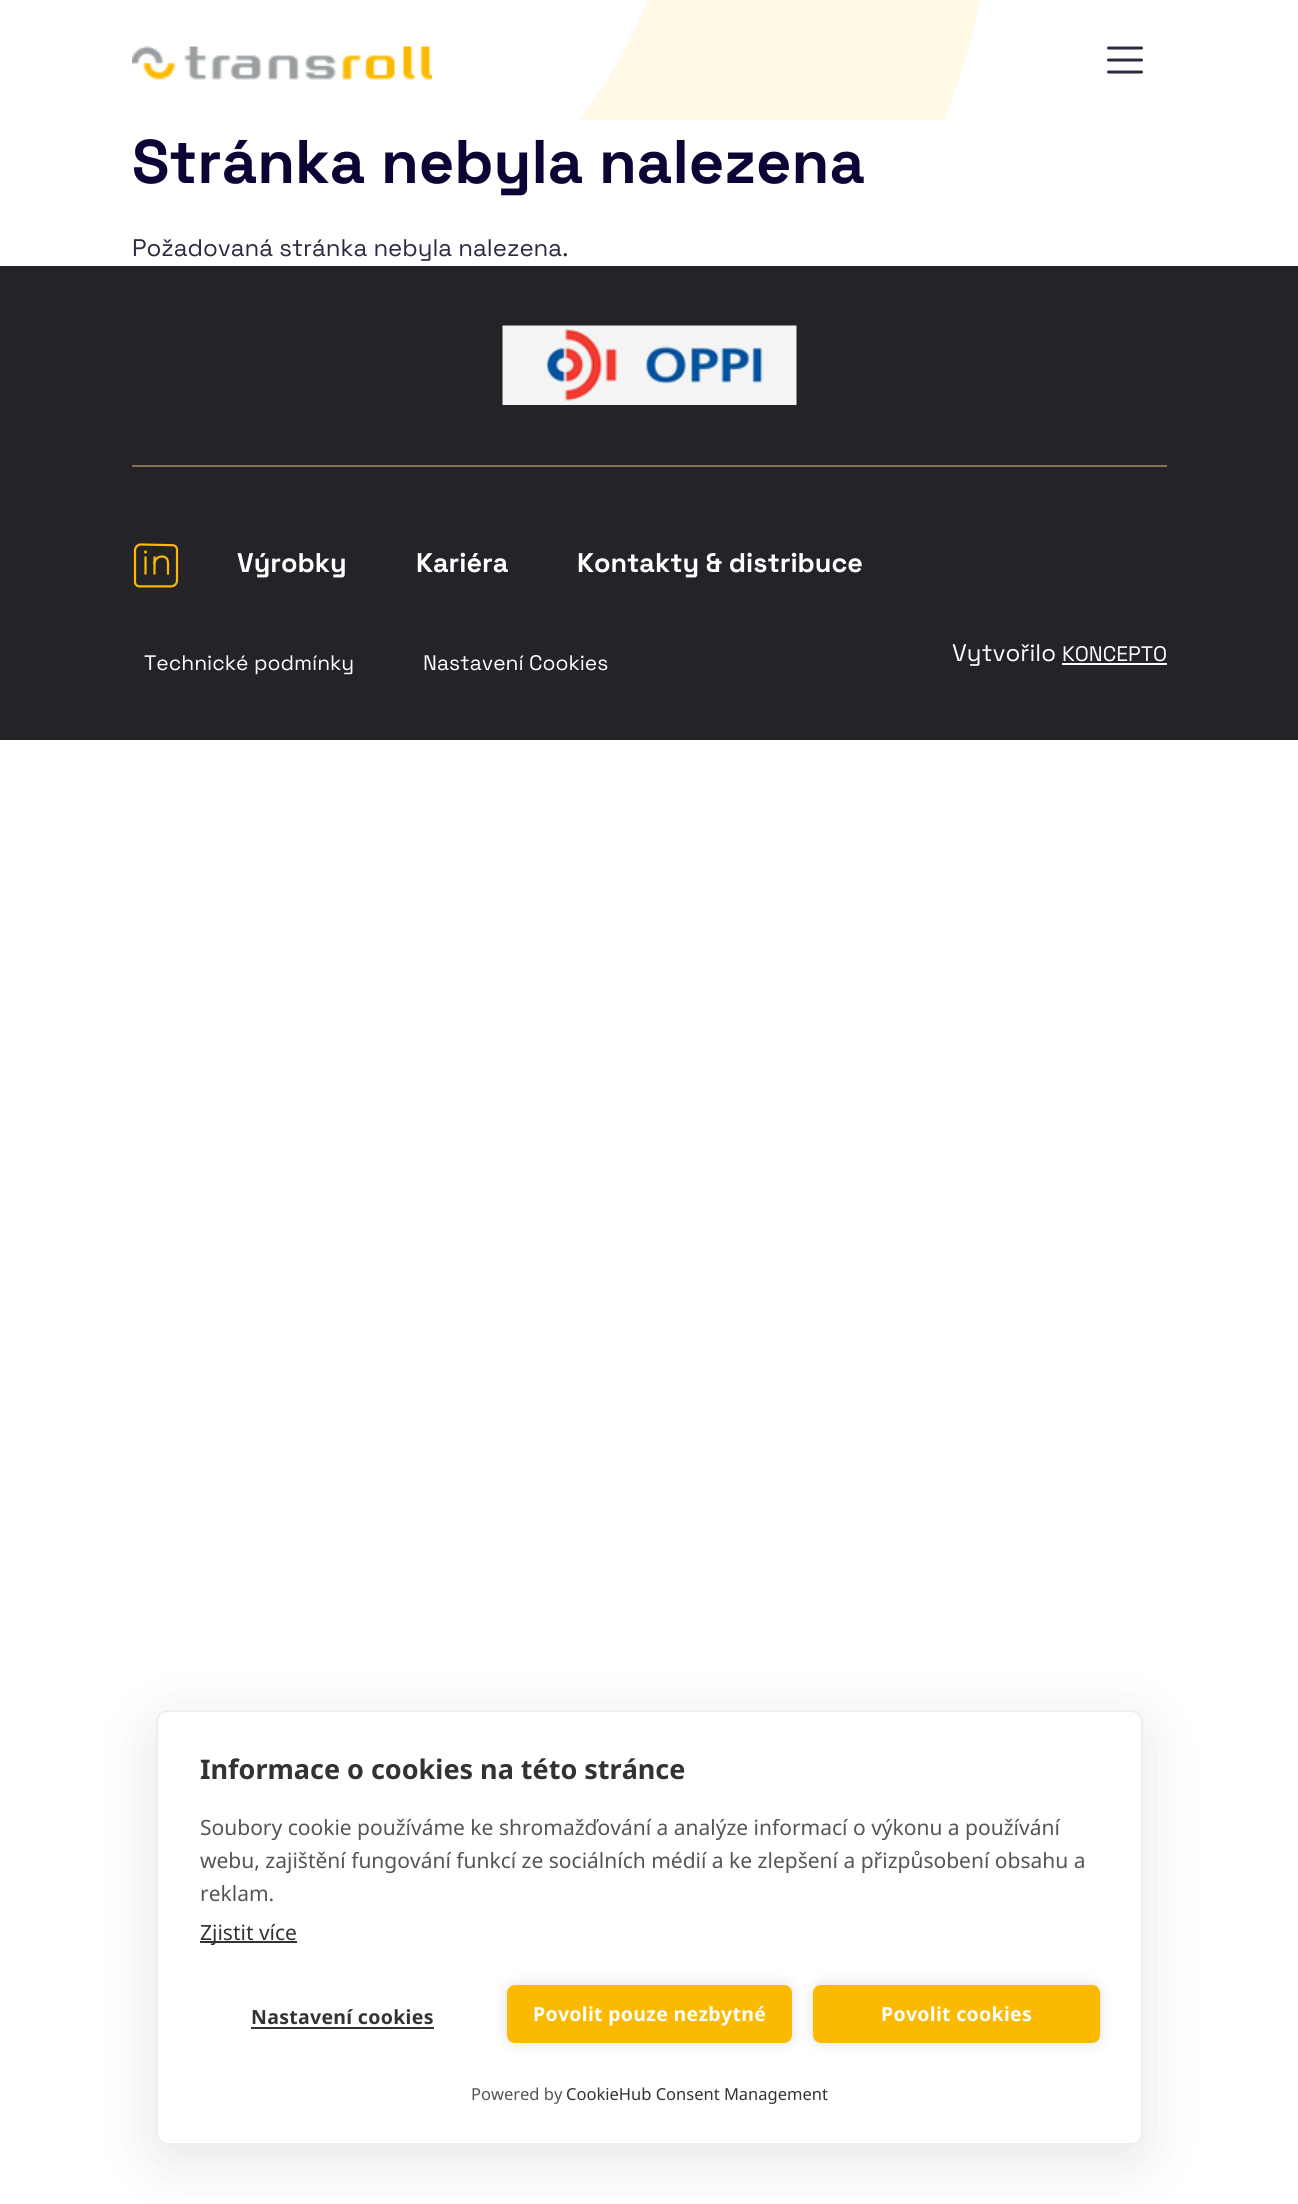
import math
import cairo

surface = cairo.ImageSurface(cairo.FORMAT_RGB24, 1298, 2204)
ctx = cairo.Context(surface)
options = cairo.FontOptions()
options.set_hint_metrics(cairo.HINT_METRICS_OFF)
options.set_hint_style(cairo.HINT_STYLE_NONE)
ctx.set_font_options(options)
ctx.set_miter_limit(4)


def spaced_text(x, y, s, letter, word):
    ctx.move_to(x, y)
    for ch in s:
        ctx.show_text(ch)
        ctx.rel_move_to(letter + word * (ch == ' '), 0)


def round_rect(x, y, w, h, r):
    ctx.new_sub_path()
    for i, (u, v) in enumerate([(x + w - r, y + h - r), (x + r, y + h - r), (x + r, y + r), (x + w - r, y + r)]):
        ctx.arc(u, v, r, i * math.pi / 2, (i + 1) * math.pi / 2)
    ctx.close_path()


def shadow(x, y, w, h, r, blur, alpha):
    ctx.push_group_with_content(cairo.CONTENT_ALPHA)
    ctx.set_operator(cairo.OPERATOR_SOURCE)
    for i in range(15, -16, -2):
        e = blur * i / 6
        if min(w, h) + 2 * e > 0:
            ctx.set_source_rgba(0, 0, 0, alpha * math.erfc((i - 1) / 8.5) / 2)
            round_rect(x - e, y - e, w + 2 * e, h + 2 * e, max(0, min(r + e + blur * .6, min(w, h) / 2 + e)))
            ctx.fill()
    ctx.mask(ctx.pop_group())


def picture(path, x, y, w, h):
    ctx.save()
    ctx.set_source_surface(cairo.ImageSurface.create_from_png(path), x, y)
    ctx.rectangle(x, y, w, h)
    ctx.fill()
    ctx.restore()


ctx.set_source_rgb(1, 1, 1)
ctx.paint()
picture("img1.png", 579, 0, 402, 120)
picture("img2.png", 132, 46, 300, 34)
ctx.new_path()
ctx.move_to(1108.5, 48)
ctx.line_to(1141.5, 48)
ctx.move_to(1108.5, 60)
ctx.line_to(1141.5, 60)
ctx.move_to(1108.5, 72)
ctx.line_to(1141.5, 72)
ctx.set_source_rgb(0.169, 0.157, 0.251)
ctx.set_line_width(3)
ctx.set_line_cap(cairo.LINE_CAP_ROUND)
ctx.stroke()
ctx.select_font_face("Space Grotesk", cairo.FONT_SLANT_NORMAL, cairo.FONT_WEIGHT_BOLD)
ctx.set_font_size(61.5)
ctx.set_source_rgb(0.043, 0.02, 0.208)
ctx.move_to(132, 183)
ctx.show_text("Stránka nebyla nalezena")
ctx.select_font_face("Space Grotesk")
ctx.set_font_size(24)
ctx.set_source_rgb(0.169, 0.157, 0.251)
ctx.move_to(132, 256)
ctx.show_text("Požadovaná stránka nebyla nalezena.")
ctx.set_source_rgb(0.137, 0.137, 0.157)
ctx.rectangle(0, 266, 1298, 474)
ctx.fill()
ctx.set_source_rgb(0.514, 0.451, 0.349)
ctx.rectangle(132, 465, 1035, 2)
ctx.fill()
picture("img3.png", 502, 325, 295, 80)
picture("img4.png", 133, 543, 46, 45)
ctx.select_font_face("Space Grotesk", cairo.FONT_SLANT_NORMAL, cairo.FONT_WEIGHT_BOLD)
ctx.set_font_size(27)
ctx.set_source_rgb(1, 1, 1)
ctx.move_to(237, 572)
ctx.show_text("Výrobky")
ctx.move_to(416, 572)
ctx.show_text("Kariéra")
ctx.move_to(577, 572)
ctx.show_text("Kontakty & distribuce")
ctx.select_font_face("Space Grotesk")
ctx.set_font_size(21)
ctx.move_to(144, 670)
ctx.show_text("Technické podmínky")
ctx.move_to(423, 670)
ctx.show_text("Nastavení Cookies")
ctx.set_font_size(24)
ctx.move_to(952, 661)
ctx.show_text("Vytvořilo")
ctx.set_font_size(21)
ctx.move_to(1062, 661)
ctx.show_text("KONCEPTO")
ctx.rectangle(1062, 663, 105, 2)
ctx.fill()
ctx.set_source_rgb(0, 0, 0)
shadow(156, 1725, 987, 435, 12, 30, 0.1)
ctx.set_source_rgb(1, 1, 1)
round_rect(157, 1711, 985, 433, 11)
ctx.fill_preserve()
ctx.set_source_rgb(0.933, 0.933, 0.933)
ctx.set_line_width(2)
ctx.set_line_cap(cairo.LINE_CAP_BUTT)
ctx.stroke()
ctx.select_font_face("Noto Sans", cairo.FONT_SLANT_NORMAL, cairo.FONT_WEIGHT_BOLD)
ctx.set_font_size(27)
ctx.set_source_rgb(0.2, 0.2, 0.2)
ctx.move_to(200, 1779)
ctx.show_text("Informace o cookies na této stránce")
ctx.select_font_face("Noto Sans")
ctx.set_font_size(21)
ctx.set_source_rgb(0.333, 0.333, 0.333)
ctx.move_to(200, 1835)
ctx.show_text("Soubory cookie používáme ke shromažďování a analýze informací o výkonu a používání")
ctx.move_to(200, 1868)
ctx.show_text("webu, zajištění fungování funkcí ze sociálních médií a ke zlepšení a přizpůsobení obsahu a")
ctx.move_to(200, 1901)
ctx.show_text("reklam.")
ctx.set_source_rgb(0.2, 0.2, 0.2)
ctx.rectangle(200, 1941, 97, 2)
ctx.fill()
ctx.move_to(200, 1940)
ctx.show_text("Zjistit více")
ctx.select_font_face("Noto Sans", cairo.FONT_SLANT_NORMAL, cairo.FONT_WEIGHT_BOLD)
ctx.set_font_size(19.5)
spaced_text(251, 2024, "Nastavení cookies", 0.3, 0)
ctx.rectangle(251, 2027, 183, 2)
ctx.fill()
ctx.set_source_rgb(0, 0, 0)
shadow(507, 1985, 285, 58, 8, 7.5, 0.12)
ctx.set_source_rgb(0.984, 0.729, 0)
round_rect(507, 1985, 285, 58, 8)
ctx.fill()
ctx.set_source_rgb(1, 1, 1)
spaced_text(533, 2021, "Povolit pouze nezbytné", 0.3, 0)
ctx.set_source_rgb(0, 0, 0)
shadow(813, 1985, 287, 58, 8, 7.5, 0.12)
ctx.set_source_rgb(0.984, 0.729, 0)
round_rect(813, 1985, 287, 58, 8)
ctx.fill()
ctx.set_source_rgb(1, 1, 1)
spaced_text(881, 2021, "Povolit cookies", 0.3, 0)
ctx.select_font_face("Noto Sans")
ctx.set_font_size(16.5)
ctx.set_source_rgb(0.333, 0.333, 0.333)
ctx.move_to(471, 2100)
ctx.show_text("Powered by")
ctx.set_source_rgb(0.2, 0.2, 0.2)
ctx.move_to(566, 2100)
ctx.show_text("CookieHub Consent Management")
surface.write_to_png("page.png")
